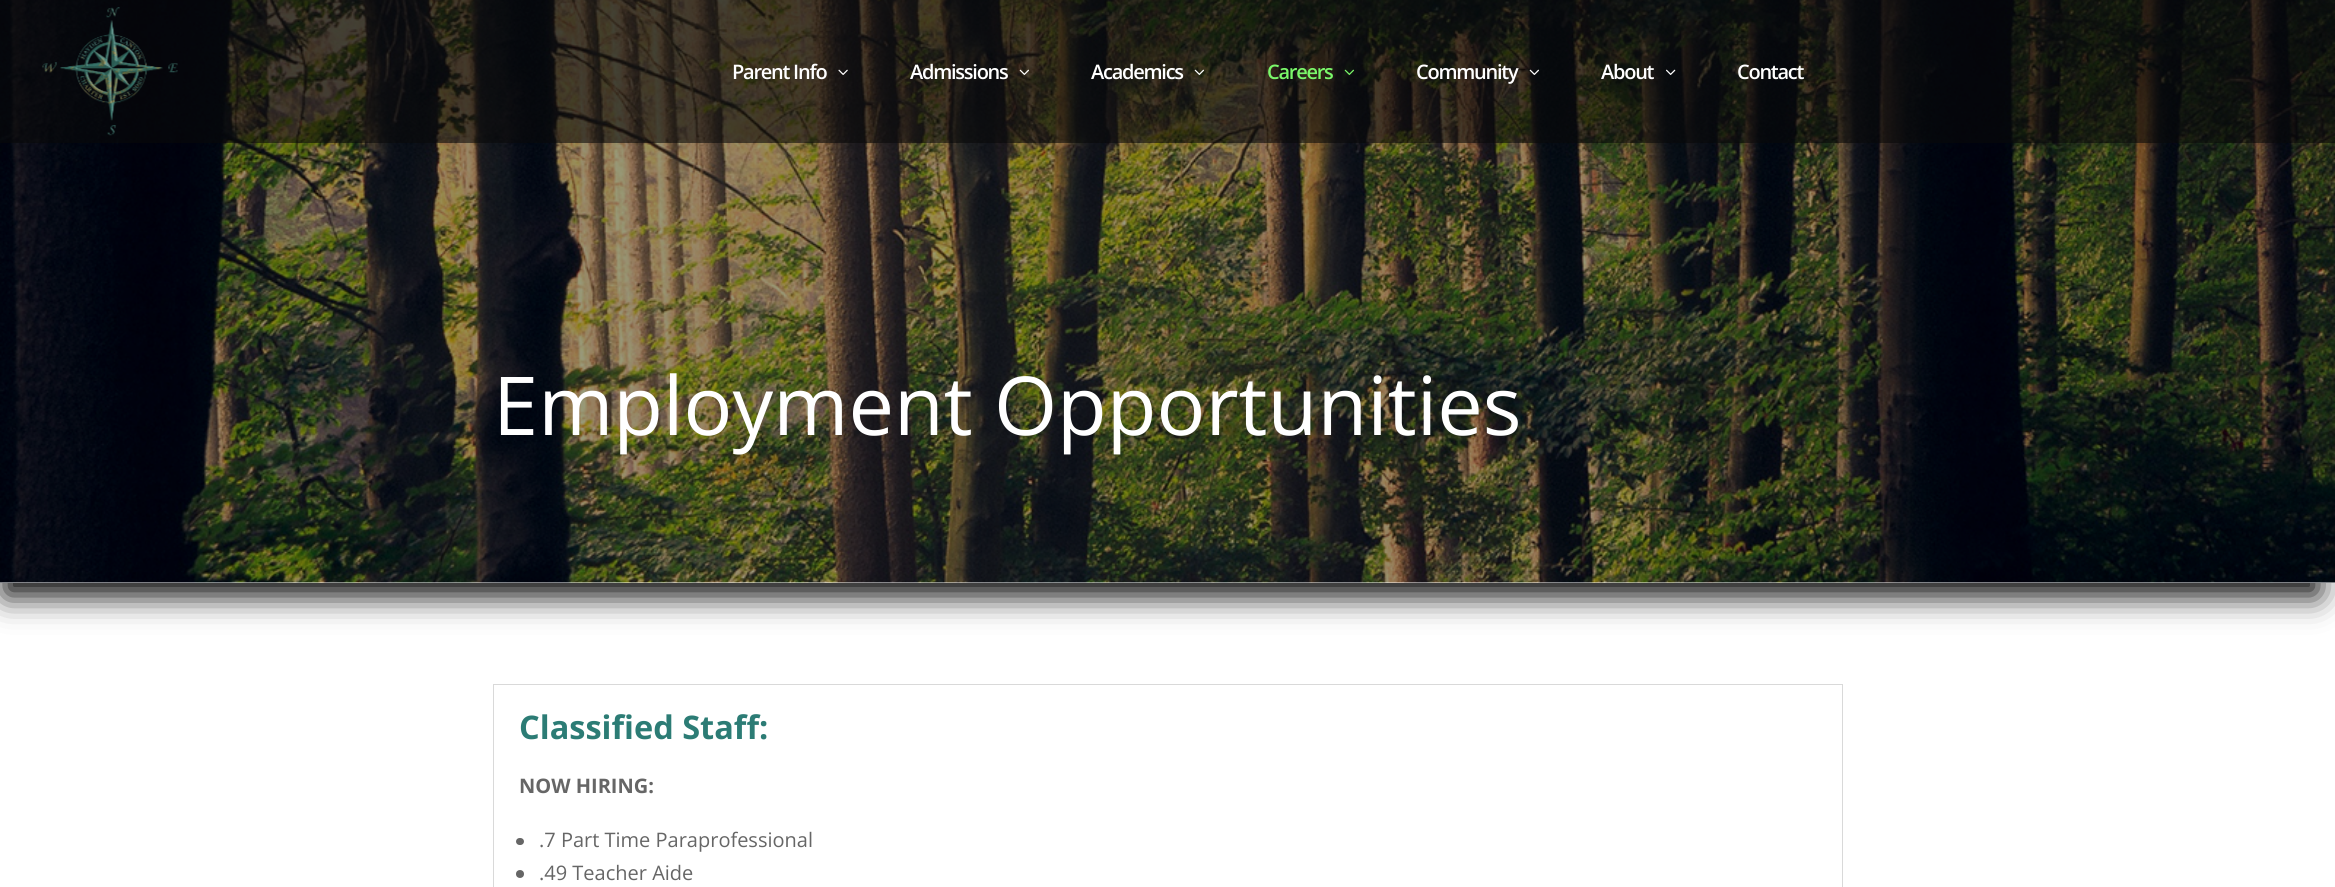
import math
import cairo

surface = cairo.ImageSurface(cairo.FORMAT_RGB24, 2335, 887)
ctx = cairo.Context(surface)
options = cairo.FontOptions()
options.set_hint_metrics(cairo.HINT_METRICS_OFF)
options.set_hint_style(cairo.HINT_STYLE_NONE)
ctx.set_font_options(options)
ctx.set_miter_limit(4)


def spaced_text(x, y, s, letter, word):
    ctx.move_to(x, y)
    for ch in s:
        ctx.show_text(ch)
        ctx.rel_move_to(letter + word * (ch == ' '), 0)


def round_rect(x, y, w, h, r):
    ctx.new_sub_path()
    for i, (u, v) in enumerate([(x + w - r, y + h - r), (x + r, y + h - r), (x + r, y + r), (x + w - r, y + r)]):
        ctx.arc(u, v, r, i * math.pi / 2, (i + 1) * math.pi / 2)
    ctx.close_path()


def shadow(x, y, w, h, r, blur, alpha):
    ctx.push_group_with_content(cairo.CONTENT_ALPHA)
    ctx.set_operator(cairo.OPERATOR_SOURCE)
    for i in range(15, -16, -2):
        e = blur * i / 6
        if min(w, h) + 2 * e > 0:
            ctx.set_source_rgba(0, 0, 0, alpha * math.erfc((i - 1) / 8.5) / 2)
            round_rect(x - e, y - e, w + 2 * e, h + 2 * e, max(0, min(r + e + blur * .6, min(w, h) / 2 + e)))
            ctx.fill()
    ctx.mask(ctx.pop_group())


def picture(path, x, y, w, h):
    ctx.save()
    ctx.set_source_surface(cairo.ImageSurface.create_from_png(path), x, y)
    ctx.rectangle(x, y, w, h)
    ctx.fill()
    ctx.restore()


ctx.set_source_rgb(1, 1, 1)
ctx.paint()
ctx.set_source_rgb(0, 0, 0)
shadow(5, 35, 2313, 560, 0, 16, 1)
ctx.set_source_rgb(1, 1, 1)
ctx.rectangle(0, 582, 2335, 1)
ctx.fill()
picture("img8.png", 0, 0, 2335, 583)
ctx.set_source_rgba(0.039, 0.039, 0.039, 0.59)
ctx.rectangle(0, 0, 2335, 143)
ctx.fill()
picture("img1.png", 42, 7, 136, 129)
ctx.select_font_face("Open Sans SemiBold")
ctx.set_font_size(20)
ctx.set_source_rgb(1, 1, 1)
spaced_text(732, 79, "Parent Info", -1.25, 0)
picture("img2.png", 838, 69, 10, 6)
spaced_text(910, 79, "Admissions", -1.25, 0)
picture("img3.png", 1019, 69, 10, 6)
spaced_text(1091, 79, "Academics", -1.25, 0)
picture("img4.png", 1194, 69, 10, 6)
ctx.set_source_rgb(0.478, 0.969, 0.416)
spaced_text(1267, 79, "Careers", -1.25, 0)
picture("img5.png", 1344, 69, 10, 6)
ctx.set_source_rgb(1, 1, 1)
spaced_text(1416, 79, "Community", -1.25, 0)
picture("img6.png", 1529, 69, 10, 6)
spaced_text(1601, 79, "About", -1.25, 0)
picture("img7.png", 1666, 69, 10, 6)
spaced_text(1737, 79, "Contact", -1.25, 0)
ctx.select_font_face("Open Sans")
ctx.set_font_size(81.25)
ctx.move_to(493, 435)
ctx.show_text("Employment Opportunities")
ctx.rectangle(493.5, 684.5, 1349, 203)
ctx.set_source_rgb(0.851, 0.851, 0.851)
ctx.set_line_width(1)
ctx.stroke()
ctx.select_font_face("Open Sans", cairo.FONT_SLANT_NORMAL, cairo.FONT_WEIGHT_BOLD)
ctx.set_font_size(32.5)
ctx.set_source_rgb(0.173, 0.486, 0.459)
ctx.move_to(519, 739)
ctx.show_text("Classified Staff:")
ctx.set_font_size(20)
ctx.set_source_rgb(0.4, 0.4, 0.4)
ctx.move_to(519, 793)
ctx.show_text("NOW HIRING:")
round_rect(516, 838, 8, 7, 3.5)
ctx.fill()
ctx.select_font_face("Open Sans")
ctx.move_to(539, 847)
ctx.show_text(".7 Part Time Paraprofessional")
ctx.new_path()
ctx.arc(520, 874, 4, 0, 2 * math.pi)
ctx.fill()
ctx.move_to(539, 880)
ctx.show_text(".49 Teacher Aide")
surface.write_to_png("page.png")
